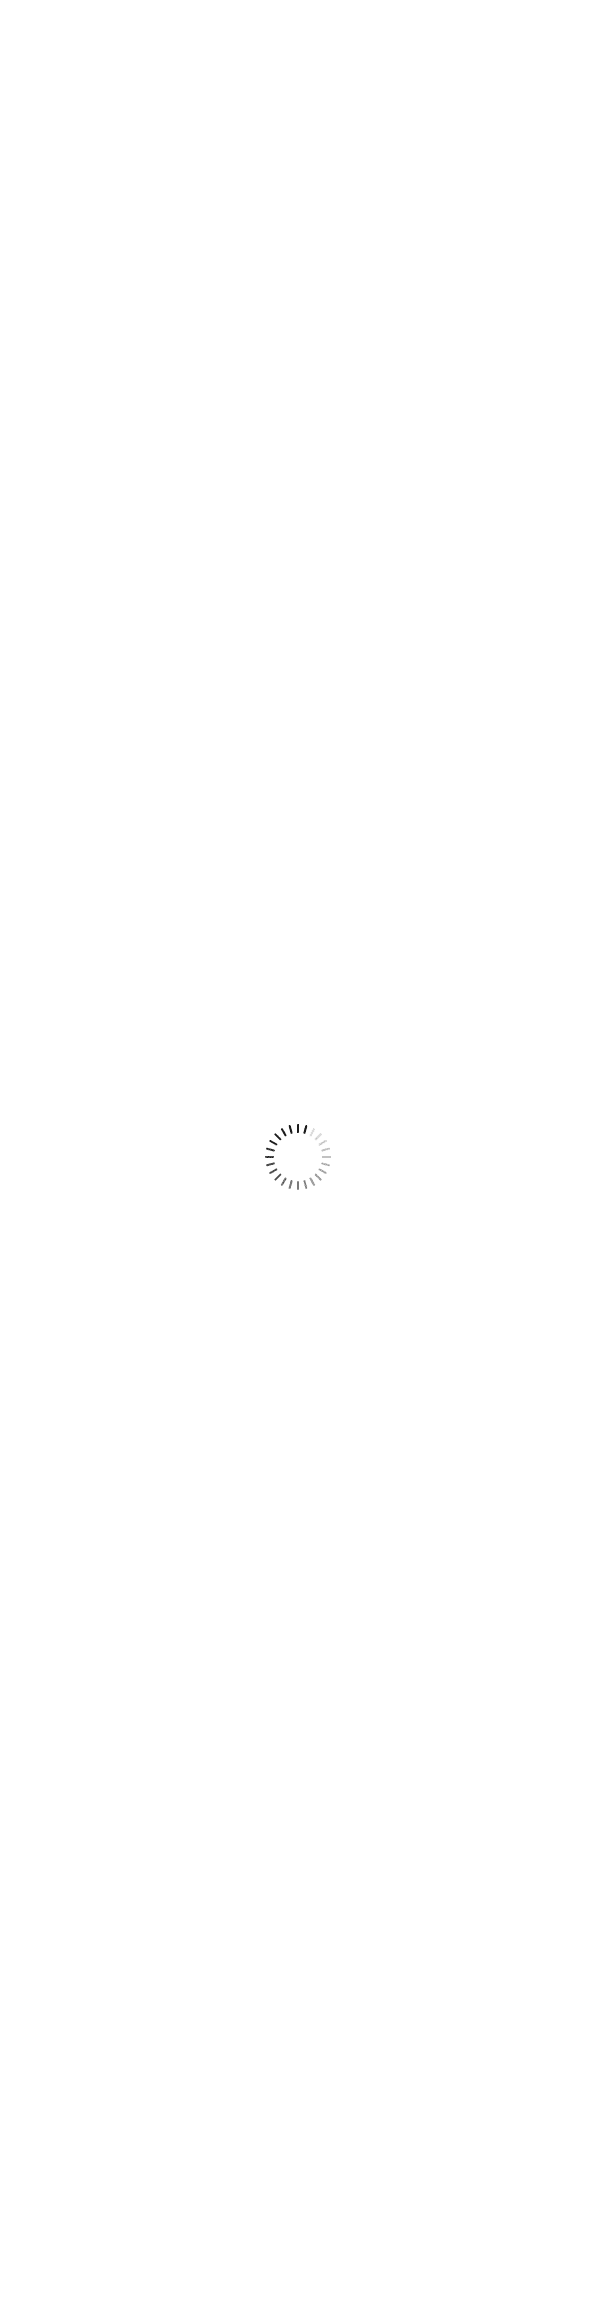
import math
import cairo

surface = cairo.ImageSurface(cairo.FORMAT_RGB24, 596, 2313)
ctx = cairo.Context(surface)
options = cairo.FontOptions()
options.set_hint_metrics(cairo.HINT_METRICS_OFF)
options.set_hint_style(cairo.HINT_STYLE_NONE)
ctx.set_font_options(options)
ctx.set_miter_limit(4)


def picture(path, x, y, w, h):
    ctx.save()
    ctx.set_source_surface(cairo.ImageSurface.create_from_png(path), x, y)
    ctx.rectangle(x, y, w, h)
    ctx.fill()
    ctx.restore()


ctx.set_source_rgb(1, 1, 1)
ctx.paint()
picture("img1.png", 265, 1124, 66, 66)
surface.write_to_png("page.png")
